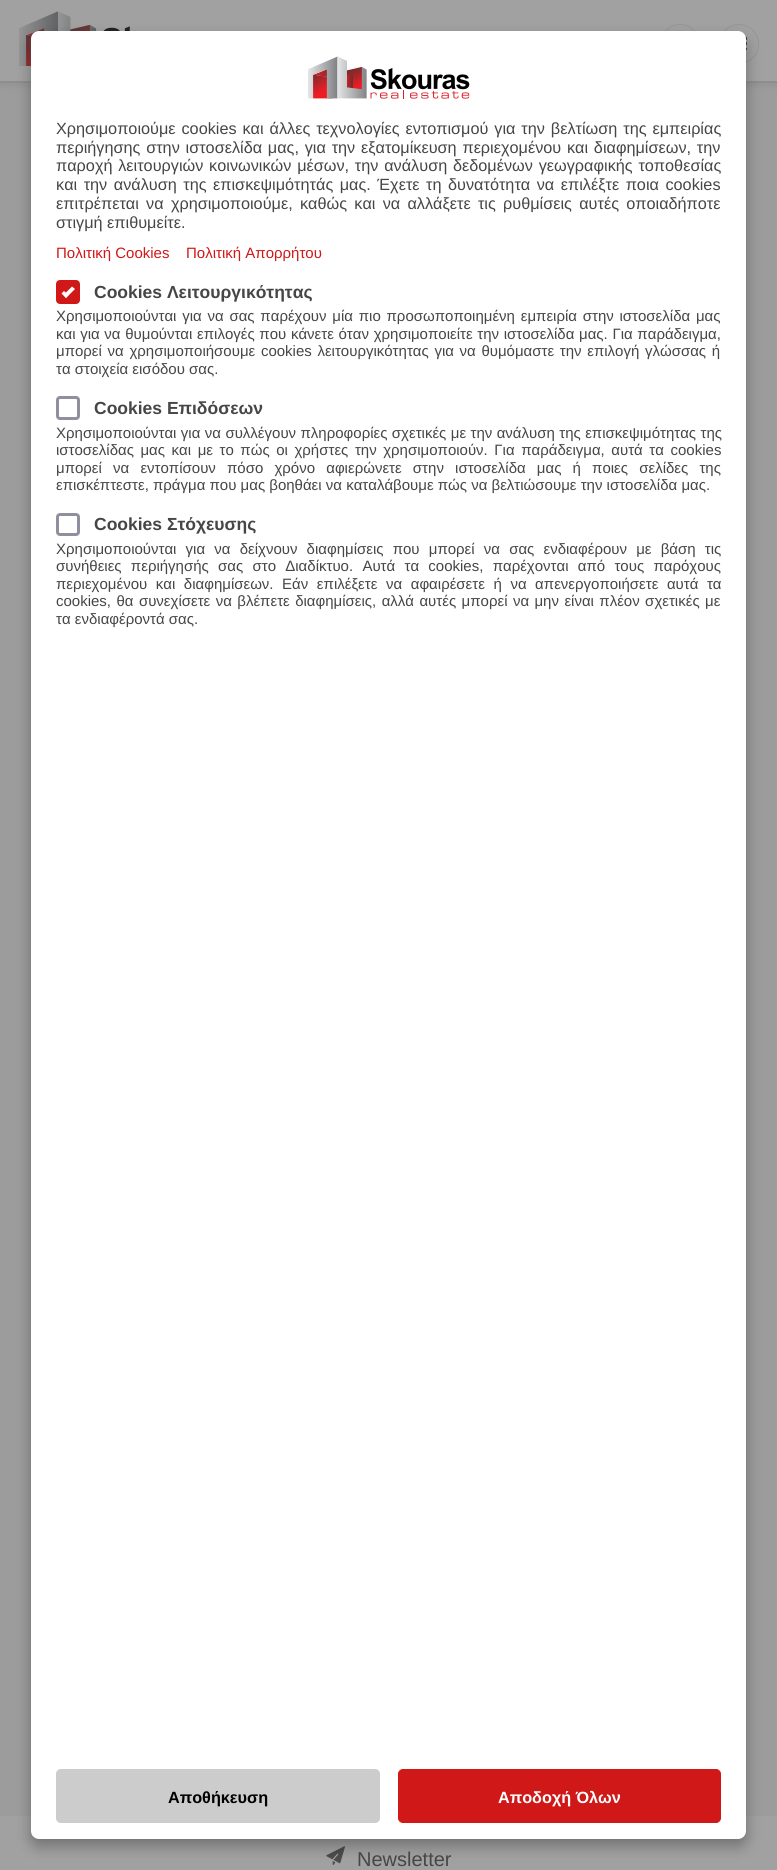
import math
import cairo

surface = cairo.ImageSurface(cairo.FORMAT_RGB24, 777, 1870)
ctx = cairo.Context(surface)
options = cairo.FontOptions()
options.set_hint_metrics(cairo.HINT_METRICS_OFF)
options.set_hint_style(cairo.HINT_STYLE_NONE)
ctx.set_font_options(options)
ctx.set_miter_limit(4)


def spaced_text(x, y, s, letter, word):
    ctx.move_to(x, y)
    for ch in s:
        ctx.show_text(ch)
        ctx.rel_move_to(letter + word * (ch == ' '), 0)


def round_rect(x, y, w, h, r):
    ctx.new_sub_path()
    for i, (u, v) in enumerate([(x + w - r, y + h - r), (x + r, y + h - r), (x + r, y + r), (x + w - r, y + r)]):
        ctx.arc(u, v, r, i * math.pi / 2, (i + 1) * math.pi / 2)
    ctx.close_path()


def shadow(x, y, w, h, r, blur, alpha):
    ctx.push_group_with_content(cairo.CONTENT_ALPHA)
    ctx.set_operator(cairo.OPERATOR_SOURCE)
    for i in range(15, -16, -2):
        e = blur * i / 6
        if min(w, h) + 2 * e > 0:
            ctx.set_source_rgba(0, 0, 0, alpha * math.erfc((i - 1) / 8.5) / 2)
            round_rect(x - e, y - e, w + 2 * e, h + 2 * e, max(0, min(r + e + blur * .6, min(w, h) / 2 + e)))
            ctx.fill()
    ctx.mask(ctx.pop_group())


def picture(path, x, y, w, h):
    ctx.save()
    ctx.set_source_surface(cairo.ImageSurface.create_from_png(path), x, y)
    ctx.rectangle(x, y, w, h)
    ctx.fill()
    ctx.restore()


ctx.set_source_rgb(0.612, 0.612, 0.612)
ctx.paint()
ctx.set_source_rgb(0.133, 0.133, 0.133)
shadow(0, 4, 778, 81, 0, 4, 0.1)
ctx.set_source_rgba(0.361, 0.361, 0.361, 0.1)
ctx.new_path()
ctx.move_to(0, 81)
ctx.line_to(0, 83)
ctx.line_to(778, 83)
ctx.line_to(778, 1)
ctx.line_to(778, 81)
ctx.close_path()
ctx.fill()
ctx.set_source_rgb(0.631, 0.631, 0.631)
ctx.rectangle(0, 0, 777, 81)
ctx.fill()
picture("img1.png", 19, 11, 111, 55)
ctx.arc(680, 44, 19.5, 0, 2 * math.pi)
ctx.set_source_rgb(0.584, 0.584, 0.584)
ctx.set_line_width(1)
ctx.stroke()
ctx.arc(739, 44, 19.5, 0, 2 * math.pi)
ctx.stroke()
ctx.set_source_rgb(0.247, 0.247, 0.247)
ctx.rectangle(745, 37, 2, 3)
ctx.fill()
ctx.rectangle(746, 42, 1, 3)
ctx.fill()
ctx.rectangle(746, 48, 1, 2)
ctx.fill()
ctx.set_source_rgb(0.631, 0.631, 0.631)
ctx.rectangle(0, 1816, 777, 54)
ctx.fill()
picture("img3.png", 326, 1846, 19, 19)
ctx.set_source_rgb(0, 0, 0)
shadow(31, 39, 715, 1807, 8, 7.5, 0.3)
ctx.set_source_rgb(0.455, 0.455, 0.455)
shadow(31, 33, 715, 1807, 8, 1, 0.3)
ctx.set_source_rgb(1, 1, 1)
round_rect(31, 31, 715, 1808, 8)
ctx.fill()
picture("img2.png", 308, 56, 162, 43)
ctx.select_font_face("Liberation Sans")
ctx.set_font_size(16.25)
ctx.set_source_rgb(0.275, 0.275, 0.275)
spaced_text(56, 134, "Χρησιμοποιούμε cookies και άλλες τεχνολογίες εντοπισμού για την βελτίωση της εμπειρίας", 0, 1.4)
spaced_text(56, 153, "περιήγησης στην ιστοσελίδα μας, για την εξατομίκευση περιεχομένου και διαφημίσεων, την", 0, 1.25)
spaced_text(56, 171, "παροχή λειτουργιών κοινωνικών μέσων, την ανάλυση δεδομένων γεωγραφικής τοποθεσίας", 0, 1.25)
spaced_text(56, 190, "και την ανάλυση της επισκεψιμότητάς μας. Έχετε τη δυνατότητα να επιλέξτε ποια cookies", 0, 2)
spaced_text(56, 209, "επιτρέπεται να χρησιμοποιούμε, καθώς και να αλλάξετε τις ρυθμίσεις αυτές οποιαδήποτε", 0, 2.75)
ctx.move_to(56, 228)
ctx.show_text("στιγμή επιθυμείτε.")
ctx.set_font_size(15)
ctx.set_source_rgb(0.816, 0.094, 0.094)
ctx.move_to(56, 258)
ctx.show_text("Πολιτική Cookies")
ctx.move_to(186, 258)
ctx.show_text("Πολιτική Απορρήτου")
round_rect(57.5, 281.5, 21, 21, 2.5)
ctx.fill_preserve()
ctx.set_line_width(3)
ctx.stroke()
ctx.set_source_rgb(1, 1, 1)
ctx.new_path()
ctx.move_to(72, 286.5)
ctx.line_to(75, 289)
ctx.line_to(66, 298)
ctx.line_to(63.5, 295)
ctx.close_path()
ctx.fill()
ctx.new_path()
ctx.move_to(64, 291)
ctx.line_to(68.5, 295)
ctx.line_to(66, 298)
ctx.line_to(61.5, 293.5)
ctx.close_path()
ctx.fill()
ctx.select_font_face("Liberation Sans", cairo.FONT_SLANT_NORMAL, cairo.FONT_WEIGHT_BOLD)
ctx.set_font_size(17.5)
ctx.set_source_rgb(0.275, 0.275, 0.275)
ctx.move_to(94, 298)
ctx.show_text("Cookies Λειτουργικότητας")
ctx.select_font_face("Liberation Sans")
ctx.set_font_size(15)
spaced_text(56, 321, "Χρησιμοποιούνται για να σας παρέχουν μία πιο προσωποποιημένη εμπειρία στην ιστοσελίδα μας", 0, 1.6)
spaced_text(56, 339, "και για να θυμούνται επιλογές που κάνετε όταν χρησιμοποιείτε την ιστοσελίδα μας. Για παράδειγμα,", 0, 0.5)
spaced_text(56, 356, "μπορεί να χρησιμοποιήσουμε cookies λειτουργικότητας για να θυμόμαστε την επιλογή γλώσσας ή", 0, 1.5)
ctx.move_to(56, 374)
ctx.show_text("τα στοιχεία εισόδου σας.")
round_rect(57.5, 397.5, 21, 21, 2.5)
ctx.set_source_rgb(0.561, 0.561, 0.616)
ctx.stroke()
ctx.select_font_face("Liberation Sans", cairo.FONT_SLANT_NORMAL, cairo.FONT_WEIGHT_BOLD)
ctx.set_font_size(17.5)
ctx.set_source_rgb(0.275, 0.275, 0.275)
ctx.move_to(94, 414)
ctx.show_text("Cookies Επιδόσεων")
ctx.select_font_face("Liberation Sans")
ctx.set_font_size(15)
spaced_text(56, 438, "Χρησιμοποιούνται για να συλλέγουν πληροφορίες σχετικές με την ανάλυση της επισκεψιμότητας της", 0, 0.25)
spaced_text(56, 455, "ιστοσελίδας μας και με το πώς οι χρήστες την χρησιμοποιούν. Για παράδειγμα, αυτά τα cookies", 0, 2.4)
spaced_text(56, 473, "μπορεί να εντοπίσουν πόσο χρόνο αφιερώνετε στην ιστοσελίδα μας ή ποιες σελίδες της", 0, 7)
ctx.move_to(56, 490)
ctx.show_text("επισκέπτεστε, πράγμα που μας βοηθάει να καταλάβουμε πώς να βελτιώσουμε την ιστοσελίδα μας.")
round_rect(57.5, 514.5, 21, 20, 2.5)
ctx.set_source_rgb(0.561, 0.561, 0.616)
ctx.stroke()
ctx.select_font_face("Liberation Sans", cairo.FONT_SLANT_NORMAL, cairo.FONT_WEIGHT_BOLD)
ctx.set_font_size(17.5)
ctx.set_source_rgb(0.275, 0.275, 0.275)
ctx.move_to(94, 530)
ctx.show_text("Cookies Στόχευσης")
ctx.select_font_face("Liberation Sans")
ctx.set_font_size(15)
spaced_text(56, 554, "Χρησιμοποιούνται για να δείχνουν διαφημίσεις που μπορεί να σας ενδιαφέρουν με βάση τις", 0, 5)
spaced_text(56, 571, "συνήθειες περιήγησής σας στο Διαδίκτυο. Αυτά τα cookies, παρέχονται από τους παρόχους", 0, 5.1)
spaced_text(56, 589, "περιεχομένου και διαφημίσεων. Εάν επιλέξετε να αφαιρέσετε ή να απενεργοποιήσετε αυτά τα", 0, 4.4)
spaced_text(56, 606, "cookies, θα συνεχίσετε να βλέπετε διαφημίσεις, αλλά αυτές μπορεί να μην είναι πλέον σχετικές με", 0, 1.25)
ctx.move_to(56, 624)
ctx.show_text("τα ενδιαφέροντά σας.")
ctx.set_source_rgb(0.8, 0.8, 0.8)
round_rect(56.5, 1769.5, 323, 53, 4.5)
ctx.fill_preserve()
ctx.set_line_width(1)
ctx.stroke()
ctx.select_font_face("Liberation Sans", cairo.FONT_SLANT_NORMAL, cairo.FONT_WEIGHT_BOLD)
ctx.set_font_size(16.25)
ctx.set_source_rgb(0, 0, 0)
ctx.move_to(168, 1803)
ctx.show_text("Αποθήκευση")
ctx.set_source_rgb(0.816, 0.094, 0.094)
round_rect(398.5, 1769.5, 322, 53, 4.5)
ctx.fill_preserve()
ctx.stroke()
ctx.set_source_rgb(1, 1, 1)
ctx.move_to(498, 1803)
ctx.show_text("Αποδοχή Όλων")
ctx.select_font_face("Liberation Sans")
ctx.set_font_size(20)
ctx.set_source_rgb(0.275, 0.275, 0.275)
ctx.move_to(357, 1866)
ctx.show_text("Newsletter")
surface.write_to_png("page.png")
